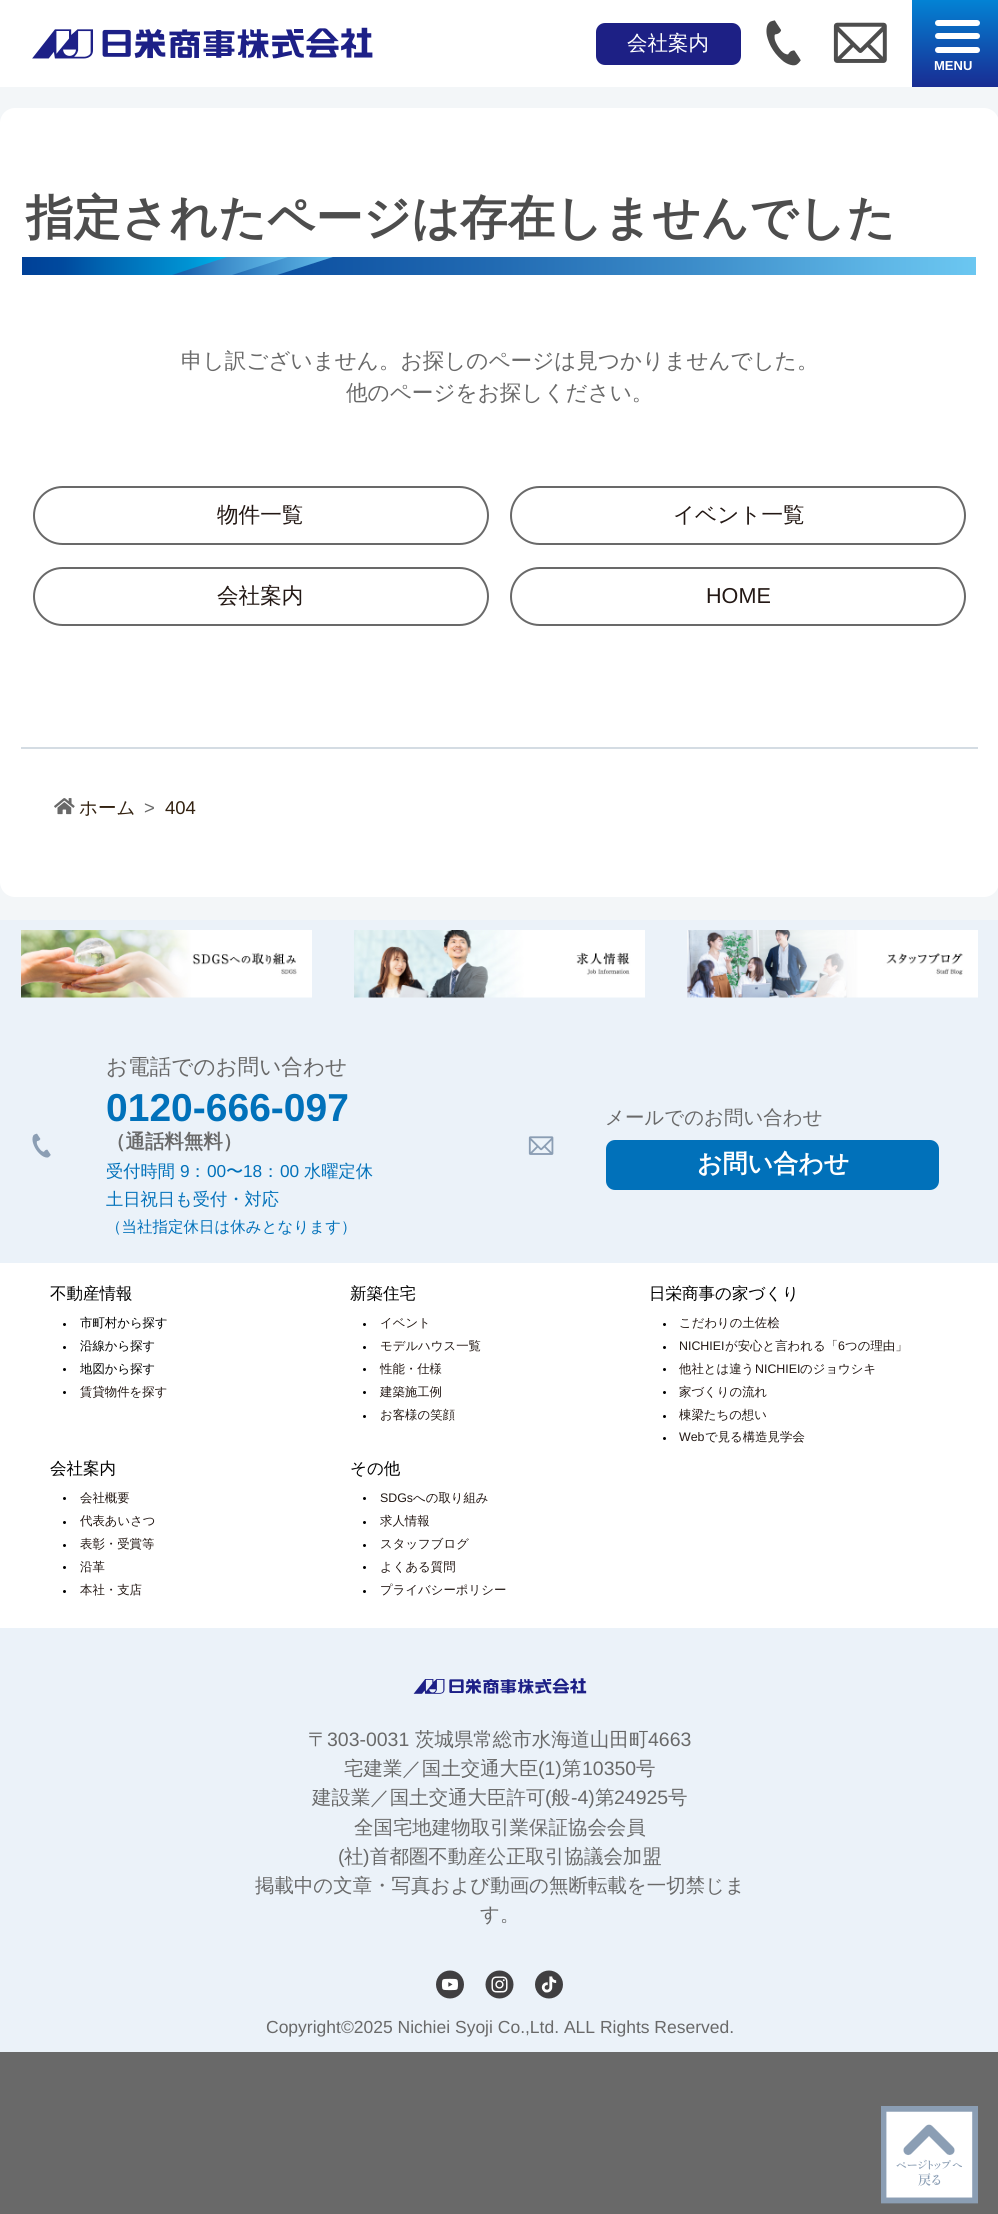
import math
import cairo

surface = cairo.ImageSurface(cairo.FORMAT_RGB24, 998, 2214)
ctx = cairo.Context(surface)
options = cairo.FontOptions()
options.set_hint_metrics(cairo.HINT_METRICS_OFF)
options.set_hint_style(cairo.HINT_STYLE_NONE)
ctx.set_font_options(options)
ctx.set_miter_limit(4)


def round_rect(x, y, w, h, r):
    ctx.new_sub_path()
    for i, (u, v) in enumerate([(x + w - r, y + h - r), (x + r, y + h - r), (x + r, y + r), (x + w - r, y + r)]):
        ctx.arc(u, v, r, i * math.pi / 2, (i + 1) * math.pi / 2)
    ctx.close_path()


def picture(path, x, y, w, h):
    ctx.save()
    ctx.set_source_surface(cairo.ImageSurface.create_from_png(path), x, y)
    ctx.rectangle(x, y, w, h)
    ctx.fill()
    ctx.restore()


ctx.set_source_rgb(0.412, 0.412, 0.412)
ctx.paint()
ctx.set_source_rgb(1, 1, 1)
ctx.rectangle(0, 0, 912, 87)
ctx.fill()
picture("img1.png", 32, 27, 341, 32)
ctx.set_source_rgb(0.114, 0.125, 0.522)
round_rect(596, 23, 145, 42, 9)
ctx.fill()
ctx.select_font_face("WenQuanYi Zen Hei Medium")
ctx.set_font_size(20.5)
ctx.set_source_rgb(1, 1, 1)
ctx.move_to(627, 50)
ctx.show_text("会社案内")
picture("img2.png", 766, 20, 35, 46)
picture("img3.png", 833, 22, 54, 41)
gradient = cairo.LinearGradient(956, 87, 956, 0)
gradient.add_color_stop_rgba(0, 0.098, 0.173, 0.576, 1)
gradient.add_color_stop_rgba(1, 0.012, 0.51, 0.831, 1)
ctx.set_source(gradient)
ctx.rectangle(912, 0, 86, 87)
ctx.fill()
ctx.set_source_rgb(1, 1, 1)
round_rect(935, 20, 45, 6, 3)
ctx.fill()
round_rect(935, 33, 45, 6, 3)
ctx.fill()
round_rect(935, 47, 45, 6, 3)
ctx.fill()
ctx.select_font_face("Liberation Sans", cairo.FONT_SLANT_NORMAL, cairo.FONT_WEIGHT_BOLD)
ctx.set_font_size(13)
ctx.move_to(934, 70)
ctx.show_text("MENU")
ctx.set_source_rgb(0.918, 0.949, 0.973)
ctx.rectangle(0, 920, 998, 343)
ctx.fill()
ctx.set_source_rgb(0.953, 0.961, 0.969)
ctx.rectangle(0, 87, 998, 833)
ctx.fill()
ctx.set_source_rgb(1, 1, 1)
round_rect(0, 108, 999, 789, 15)
ctx.fill()
ctx.select_font_face("WenQuanYi Zen Hei", cairo.FONT_SLANT_NORMAL, cairo.FONT_WEIGHT_BOLD)
ctx.set_font_size(47.5)
ctx.set_source_rgb(0.302, 0.302, 0.302)
ctx.move_to(26, 234)
ctx.show_text("指定されたページは")
ctx.move_to(460, 234)
ctx.show_text("存在しませんでした")
gradient = cairo.LinearGradient(22, 266, 976, 266)
gradient.add_color_stop_rgba(0, 0, 0.251, 0.592, 1)
gradient.add_color_stop_rgba(0.2, 0.012, 0.267, 0.604, 1)
gradient.add_color_stop_rgba(0.3, 0.059, 0.325, 0.639, 1)
gradient.add_color_stop_rgba(0.5, 0.133, 0.42, 0.702, 1)
gradient.add_color_stop_rgba(0.7, 0.235, 0.549, 0.788, 1)
gradient.add_color_stop_rgba(0.9, 0.369, 0.714, 0.902, 1)
gradient.add_color_stop_rgba(1, 0.42, 0.78, 0.945, 1)
ctx.set_source(gradient)
ctx.rectangle(277, 257, 699, 18)
ctx.fill()
ctx.save()
ctx.rectangle(21, 257, 957, 18)
ctx.clip()
gradient = cairo.LinearGradient(157, 266, 336, 266)
gradient.add_color_stop_rgba(0, 0, 0.251, 0.592, 1)
gradient.add_color_stop_rgba(0, 0.027, 0.286, 0.616, 1)
gradient.add_color_stop_rgba(0.4, 0.102, 0.38, 0.678, 1)
gradient.add_color_stop_rgba(0.6, 0.227, 0.537, 0.784, 1)
gradient.add_color_stop_rgba(1, 0.4, 0.753, 0.925, 1)
gradient.add_color_stop_rgba(1, 0.42, 0.78, 0.945, 1)
ctx.set_source(gradient)
ctx.new_path()
ctx.move_to(277, 275)
ctx.line_to(157, 275)
ctx.line_to(157, 256)
ctx.line_to(336, 256)
ctx.close_path()
ctx.fill()
gradient = cairo.LinearGradient(114, 266, 291, 266)
gradient.add_color_stop_rgba(0, 0, 0.251, 0.592, 1)
gradient.add_color_stop_rgba(0, 0.027, 0.286, 0.616, 1)
gradient.add_color_stop_rgba(0.4, 0.102, 0.38, 0.678, 1)
gradient.add_color_stop_rgba(0.6, 0.227, 0.537, 0.784, 1)
gradient.add_color_stop_rgba(1, 0.4, 0.753, 0.925, 1)
gradient.add_color_stop_rgba(1, 0.42, 0.78, 0.945, 1)
ctx.set_source(gradient)
ctx.new_path()
ctx.move_to(232, 275)
ctx.line_to(114, 275)
ctx.line_to(114, 256)
ctx.line_to(291, 256)
ctx.close_path()
ctx.fill()
gradient = cairo.LinearGradient(22, 266, 230, 266)
gradient.add_color_stop_rgba(0, 0, 0.302, 0.627, 1)
gradient.add_color_stop_rgba(0, 0, 0.263, 0.6, 1)
gradient.add_color_stop_rgba(0, 0, 0.251, 0.592, 1)
gradient.add_color_stop_rgba(0.2, 0, 0.29, 0.62, 1)
gradient.add_color_stop_rgba(0.4, 0, 0.4, 0.698, 1)
gradient.add_color_stop_rgba(0.8, 0, 0.576, 0.827, 1)
gradient.add_color_stop_rgba(1, 0, 0.722, 0.933, 1)
ctx.set_source(gradient)
ctx.new_path()
ctx.move_to(172, 275)
ctx.line_to(22, 275)
ctx.line_to(22, 256)
ctx.line_to(230, 256)
ctx.close_path()
ctx.fill()
ctx.restore()
ctx.select_font_face("WenQuanYi Zen Hei Medium")
ctx.set_font_size(21.6)
ctx.set_source_rgb(0.412, 0.412, 0.412)
ctx.move_to(181, 368)
ctx.show_text("申し訳ございません。お探しのページは見つかりませんでした。")
ctx.move_to(346, 400)
ctx.show_text("他のページをお探しください。")
round_rect(34, 487, 454, 57, 28.5)
ctx.stroke()
ctx.set_source_rgb(0.137, 0.094, 0.082)
ctx.move_to(217, 522)
ctx.show_text("物件一覧")
round_rect(511, 487, 454, 57, 28.5)
ctx.set_source_rgb(0.412, 0.412, 0.412)
ctx.stroke()
ctx.set_source_rgb(0.137, 0.094, 0.082)
ctx.move_to(673, 522)
ctx.show_text("イベント一覧")
round_rect(34, 568, 454, 57, 28.5)
ctx.set_source_rgb(0.412, 0.412, 0.412)
ctx.stroke()
ctx.set_source_rgb(0.137, 0.094, 0.082)
ctx.move_to(217, 603)
ctx.show_text("会社案内")
round_rect(511, 568, 454, 57, 28.5)
ctx.set_source_rgb(0.412, 0.412, 0.412)
ctx.stroke()
ctx.select_font_face("Liberation Sans")
ctx.set_source_rgb(0.137, 0.094, 0.082)
ctx.move_to(706, 603)
ctx.show_text("HOME")
ctx.set_source_rgb(0.831, 0.863, 0.89)
ctx.rectangle(21, 747, 957, 2)
ctx.fill()
picture("img4.png", 54, 798, 21, 17)
ctx.select_font_face("WenQuanYi Zen Hei Medium")
ctx.set_font_size(18.5)
ctx.set_source_rgb(0.2, 0.133, 0.067)
ctx.move_to(79, 814)
ctx.show_text("ホーム")
ctx.select_font_face("Liberation Sans")
ctx.set_source_rgb(0.412, 0.412, 0.412)
ctx.move_to(144, 814)
ctx.show_text(">")
ctx.set_source_rgb(0.2, 0.133, 0.067)
ctx.move_to(165, 814)
ctx.show_text("404")
picture("img5.png", 21, 930, 291, 68)
picture("img6.png", 354, 930, 291, 68)
picture("img7.png", 687, 930, 291, 68)
picture("img8.png", 32, 1133, 19, 25)
ctx.select_font_face("WenQuanYi Zen Hei Medium")
ctx.set_font_size(21.6)
ctx.set_source_rgb(0.412, 0.412, 0.412)
ctx.move_to(106, 1074)
ctx.show_text("お電話でのお問い合わせ")
ctx.select_font_face("Liberation Sans", cairo.FONT_SLANT_NORMAL, cairo.FONT_WEIGHT_BOLD)
ctx.set_font_size(39)
ctx.set_source_rgb(0.004, 0.443, 0.729)
ctx.move_to(106, 1121)
ctx.show_text("0120-666-097")
ctx.select_font_face("WenQuanYi Zen Hei", cairo.FONT_SLANT_NORMAL, cairo.FONT_WEIGHT_BOLD)
ctx.set_font_size(19.45)
ctx.set_source_rgb(0.412, 0.412, 0.412)
ctx.move_to(106, 1148)
ctx.show_text("（通話料無料）")
ctx.select_font_face("WenQuanYi Zen Hei Medium")
ctx.set_font_size(17.25)
ctx.set_source_rgb(0.004, 0.443, 0.729)
ctx.move_to(106, 1177)
ctx.show_text("受付時間")
ctx.select_font_face("Liberation Sans")
ctx.move_to(180, 1177)
ctx.show_text("9")
ctx.select_font_face("WenQuanYi Zen Hei Medium")
ctx.move_to(189, 1177)
ctx.show_text("：")
ctx.select_font_face("Liberation Sans")
ctx.move_to(207, 1177)
ctx.show_text("00")
ctx.select_font_face("WenQuanYi Zen Hei Medium")
ctx.move_to(226, 1177)
ctx.show_text("〜")
ctx.select_font_face("Liberation Sans")
ctx.move_to(243, 1177)
ctx.show_text("18")
ctx.select_font_face("WenQuanYi Zen Hei Medium")
ctx.move_to(262, 1177)
ctx.show_text("：")
ctx.select_font_face("Liberation Sans")
ctx.move_to(280, 1177)
ctx.show_text("00")
ctx.select_font_face("WenQuanYi Zen Hei Medium")
ctx.move_to(304, 1177)
ctx.show_text("水曜定休")
ctx.move_to(106, 1205)
ctx.show_text("土日祝日も受付・対応")
ctx.set_font_size(15.5)
ctx.move_to(106, 1232)
ctx.show_text("（当社指定休日は休みとなります）")
picture("img9.png", 528, 1136, 26, 19)
ctx.set_font_size(19.45)
ctx.set_source_rgb(0.412, 0.412, 0.412)
ctx.move_to(605, 1124)
ctx.show_text("メールでのお問い合わせ")
ctx.set_source_rgb(0.004, 0.443, 0.729)
round_rect(606, 1140, 333, 50, 9)
ctx.fill()
ctx.select_font_face("WenQuanYi Zen Hei", cairo.FONT_SLANT_NORMAL, cairo.FONT_WEIGHT_BOLD)
ctx.set_font_size(25)
ctx.set_source_rgb(1, 1, 1)
ctx.move_to(697, 1172)
ctx.show_text("お問い合わせ")
ctx.rectangle(0, 1263, 998, 365)
ctx.fill()
ctx.select_font_face("WenQuanYi Zen Hei Medium")
ctx.set_font_size(16.5)
ctx.set_source_rgb(0, 0, 0)
ctx.move_to(50, 1299)
ctx.show_text("不動産情報")
ctx.new_path()
ctx.arc(64.5, 1324.5, 1.5, 0, 2 * math.pi)
ctx.fill()
ctx.set_font_size(12.4)
ctx.move_to(80, 1327)
ctx.show_text("市町村から探す")
ctx.new_path()
ctx.arc(64.5, 1347.5, 1.5, 0, 2 * math.pi)
ctx.fill()
ctx.move_to(80, 1350)
ctx.show_text("沿線から探す")
ctx.new_path()
ctx.arc(64.5, 1369.5, 1.5, 0, 2 * math.pi)
ctx.fill()
ctx.move_to(80, 1373)
ctx.show_text("地図から探す")
ctx.new_path()
ctx.arc(64.5, 1392.5, 1.5, 0, 2 * math.pi)
ctx.fill()
ctx.set_source_rgb(0.137, 0.094, 0.082)
ctx.move_to(80, 1396)
ctx.show_text("賃貸物件を探す")
ctx.set_font_size(16.5)
ctx.set_source_rgb(0, 0, 0)
ctx.move_to(350, 1299)
ctx.show_text("新築住宅")
ctx.new_path()
ctx.arc(364.5, 1324.5, 1.5, 0, 2 * math.pi)
ctx.fill()
ctx.set_font_size(12.4)
ctx.set_source_rgb(0.137, 0.094, 0.082)
ctx.move_to(380, 1327)
ctx.show_text("イベント")
ctx.set_source_rgb(0, 0, 0)
ctx.new_path()
ctx.arc(364.5, 1347.5, 1.5, 0, 2 * math.pi)
ctx.fill()
ctx.set_source_rgb(0.137, 0.094, 0.082)
ctx.move_to(380, 1350)
ctx.show_text("モデルハウス一覧")
ctx.set_source_rgb(0, 0, 0)
ctx.new_path()
ctx.arc(364.5, 1369.5, 1.5, 0, 2 * math.pi)
ctx.fill()
ctx.set_source_rgb(0.137, 0.094, 0.082)
ctx.move_to(380, 1373)
ctx.show_text("性能・仕様")
ctx.set_source_rgb(0, 0, 0)
ctx.new_path()
ctx.arc(364.5, 1392.5, 1.5, 0, 2 * math.pi)
ctx.fill()
ctx.set_source_rgb(0.137, 0.094, 0.082)
ctx.move_to(380, 1396)
ctx.show_text("建築施工例")
ctx.set_source_rgb(0, 0, 0)
ctx.new_path()
ctx.arc(364.5, 1416.5, 1.5, 0, 2 * math.pi)
ctx.fill()
ctx.set_source_rgb(0.137, 0.094, 0.082)
ctx.move_to(380, 1419)
ctx.show_text("お客様の笑顔")
ctx.set_font_size(16.5)
ctx.set_source_rgb(0, 0, 0)
ctx.move_to(649, 1299)
ctx.show_text("日栄商事の家づくり")
ctx.new_path()
ctx.arc(664.5, 1324.5, 1.5, 0, 2 * math.pi)
ctx.fill()
ctx.set_font_size(12.4)
ctx.set_source_rgb(0.137, 0.094, 0.082)
ctx.move_to(679, 1327)
ctx.show_text("こだわりの土佐桧")
ctx.set_source_rgb(0, 0, 0)
ctx.new_path()
ctx.arc(664.5, 1347.5, 1.5, 0, 2 * math.pi)
ctx.fill()
ctx.select_font_face("Liberation Sans")
ctx.set_source_rgb(0.137, 0.094, 0.082)
ctx.move_to(679, 1350)
ctx.show_text("NICHIEI")
ctx.select_font_face("WenQuanYi Zen Hei Medium")
ctx.move_to(725, 1350)
ctx.show_text("が安心と言われる「")
ctx.select_font_face("Liberation Sans")
ctx.move_to(838, 1350)
ctx.show_text("6")
ctx.select_font_face("WenQuanYi Zen Hei Medium")
ctx.move_to(845, 1350)
ctx.show_text("つの理由」")
ctx.set_source_rgb(0, 0, 0)
ctx.new_path()
ctx.arc(664.5, 1369.5, 1.5, 0, 2 * math.pi)
ctx.fill()
ctx.set_source_rgb(0.137, 0.094, 0.082)
ctx.move_to(679, 1373)
ctx.show_text("他社とは違う")
ctx.select_font_face("Liberation Sans")
ctx.move_to(755, 1373)
ctx.show_text("NICHIEI")
ctx.select_font_face("WenQuanYi Zen Hei Medium")
ctx.move_to(800, 1373)
ctx.show_text("のジョウシキ")
ctx.set_source_rgb(0, 0, 0)
ctx.new_path()
ctx.arc(664.5, 1392.5, 1.5, 0, 2 * math.pi)
ctx.fill()
ctx.set_source_rgb(0.137, 0.094, 0.082)
ctx.move_to(679, 1396)
ctx.show_text("家づくりの流れ")
ctx.set_source_rgb(0, 0, 0)
ctx.new_path()
ctx.arc(664.5, 1416.5, 1.5, 0, 2 * math.pi)
ctx.fill()
ctx.set_source_rgb(0.137, 0.094, 0.082)
ctx.move_to(679, 1419)
ctx.show_text("棟梁たちの想い")
ctx.set_source_rgb(0, 0, 0)
ctx.new_path()
ctx.arc(664.5, 1438.5, 1.5, 0, 2 * math.pi)
ctx.fill()
ctx.select_font_face("Liberation Sans")
ctx.set_source_rgb(0.137, 0.094, 0.082)
ctx.move_to(679, 1441)
ctx.show_text("Web")
ctx.select_font_face("WenQuanYi Zen Hei Medium")
ctx.move_to(705, 1441)
ctx.show_text("で見る構造見学会")
ctx.set_font_size(16.5)
ctx.set_source_rgb(0, 0, 0)
ctx.move_to(50, 1474)
ctx.show_text("会社案内")
ctx.new_path()
ctx.arc(64.5, 1498.5, 1.5, 0, 2 * math.pi)
ctx.fill()
ctx.set_font_size(12.4)
ctx.set_source_rgb(0.137, 0.094, 0.082)
ctx.move_to(80, 1502)
ctx.show_text("会社概要")
ctx.set_source_rgb(0, 0, 0)
ctx.new_path()
ctx.arc(64.5, 1522.5, 1.5, 0, 2 * math.pi)
ctx.fill()
ctx.set_source_rgb(0.137, 0.094, 0.082)
ctx.move_to(80, 1525)
ctx.show_text("代表あいさつ")
ctx.set_source_rgb(0, 0, 0)
ctx.new_path()
ctx.arc(64.5, 1545.5, 1.5, 0, 2 * math.pi)
ctx.fill()
ctx.set_source_rgb(0.137, 0.094, 0.082)
ctx.move_to(80, 1548)
ctx.show_text("表彰・受賞等")
ctx.set_source_rgb(0, 0, 0)
ctx.new_path()
ctx.arc(64.5, 1567.5, 1.5, 0, 2 * math.pi)
ctx.fill()
ctx.set_source_rgb(0.137, 0.094, 0.082)
ctx.move_to(80, 1571)
ctx.show_text("沿革")
ctx.set_source_rgb(0, 0, 0)
ctx.new_path()
ctx.arc(64.5, 1591.5, 1.5, 0, 2 * math.pi)
ctx.fill()
ctx.set_source_rgb(0.137, 0.094, 0.082)
ctx.move_to(80, 1594)
ctx.show_text("本社・支店")
ctx.set_font_size(16.5)
ctx.set_source_rgb(0, 0, 0)
ctx.move_to(350, 1474)
ctx.show_text("その他")
ctx.new_path()
ctx.arc(364.5, 1498.5, 1.5, 0, 2 * math.pi)
ctx.fill()
ctx.select_font_face("Liberation Sans")
ctx.set_font_size(12.4)
ctx.set_source_rgb(0.137, 0.094, 0.082)
ctx.move_to(380, 1502)
ctx.show_text("SDGs")
ctx.select_font_face("WenQuanYi Zen Hei Medium")
ctx.move_to(413, 1502)
ctx.show_text("への取り組み")
ctx.set_source_rgb(0, 0, 0)
ctx.new_path()
ctx.arc(364.5, 1522.5, 1.5, 0, 2 * math.pi)
ctx.fill()
ctx.set_source_rgb(0.137, 0.094, 0.082)
ctx.move_to(380, 1525)
ctx.show_text("求人情報")
ctx.set_source_rgb(0, 0, 0)
ctx.new_path()
ctx.arc(364.5, 1545.5, 1.5, 0, 2 * math.pi)
ctx.fill()
ctx.set_source_rgb(0.137, 0.094, 0.082)
ctx.move_to(380, 1548)
ctx.show_text("スタッフブログ")
ctx.set_source_rgb(0, 0, 0)
ctx.new_path()
ctx.arc(364.5, 1567.5, 1.5, 0, 2 * math.pi)
ctx.fill()
ctx.set_source_rgb(0.137, 0.094, 0.082)
ctx.move_to(380, 1571)
ctx.show_text("よくある質問")
ctx.set_source_rgb(0, 0, 0)
ctx.new_path()
ctx.arc(364.5, 1591.5, 1.5, 0, 2 * math.pi)
ctx.fill()
ctx.set_source_rgb(0.137, 0.094, 0.082)
ctx.move_to(380, 1594)
ctx.show_text("プライバシーポリシー")
ctx.set_source_rgb(0.918, 0.949, 0.973)
ctx.rectangle(0, 1628, 998, 424)
ctx.fill()
picture("img10.png", 413, 1678, 174, 16)
ctx.set_font_size(19.45)
ctx.set_source_rgb(0.412, 0.412, 0.412)
ctx.move_to(308, 1746)
ctx.show_text("〒")
ctx.select_font_face("Liberation Sans")
ctx.move_to(327, 1746)
ctx.show_text("303-0031")
ctx.select_font_face("WenQuanYi Zen Hei Medium")
ctx.move_to(415, 1746)
ctx.show_text("茨城県常総市水海道山田町")
ctx.select_font_face("Liberation Sans")
ctx.move_to(648, 1746)
ctx.show_text("4663")
ctx.select_font_face("WenQuanYi Zen Hei Medium")
ctx.move_to(344, 1775)
ctx.show_text("宅建業／国土交通大臣")
ctx.select_font_face("Liberation Sans")
ctx.move_to(538, 1775)
ctx.show_text("(1)")
ctx.select_font_face("WenQuanYi Zen Hei Medium")
ctx.move_to(562, 1775)
ctx.show_text("第")
ctx.select_font_face("Liberation Sans")
ctx.move_to(582, 1775)
ctx.show_text("10350")
ctx.select_font_face("WenQuanYi Zen Hei Medium")
ctx.move_to(636, 1775)
ctx.show_text("号")
ctx.move_to(312, 1804)
ctx.show_text("建設業／国土交通大臣許可")
ctx.select_font_face("Liberation Sans")
ctx.move_to(545, 1804)
ctx.show_text("(")
ctx.select_font_face("WenQuanYi Zen Hei Medium")
ctx.move_to(551, 1804)
ctx.show_text("般")
ctx.select_font_face("Liberation Sans")
ctx.move_to(571, 1804)
ctx.show_text("-4)")
ctx.select_font_face("WenQuanYi Zen Hei Medium")
ctx.move_to(595, 1804)
ctx.show_text("第")
ctx.select_font_face("Liberation Sans")
ctx.move_to(614, 1804)
ctx.show_text("24925")
ctx.select_font_face("WenQuanYi Zen Hei Medium")
ctx.move_to(668, 1804)
ctx.show_text("号")
ctx.move_to(354, 1834)
ctx.show_text("全国宅地建物取引業保証協会会員")
ctx.select_font_face("Liberation Sans")
ctx.move_to(338, 1863)
ctx.show_text("(")
ctx.select_font_face("WenQuanYi Zen Hei Medium")
ctx.move_to(344, 1863)
ctx.show_text("社")
ctx.select_font_face("Liberation Sans")
ctx.move_to(363, 1863)
ctx.show_text(")")
ctx.select_font_face("WenQuanYi Zen Hei Medium")
ctx.move_to(370, 1863)
ctx.show_text("首都圏不動産公正取引協議会加盟")
ctx.move_to(255, 1892)
ctx.show_text("掲載中の文章・写真および動画の無断転載を一切禁じま")
ctx.move_to(480, 1921)
ctx.show_text("す。")
picture("img11.png", 436, 1970, 28, 29)
picture("img12.png", 485, 1970, 29, 29)
picture("img13.png", 535, 1970, 28, 29)
ctx.select_font_face("Liberation Sans")
ctx.set_font_size(17.5)
ctx.move_to(266, 2033)
ctx.show_text("Copyright©2025 Nichiei Syoji Co.,Ltd. ALL Rights Reserved.")
picture("img14.png", 881, 2106, 97, 98)
surface.write_to_png("page.png")
